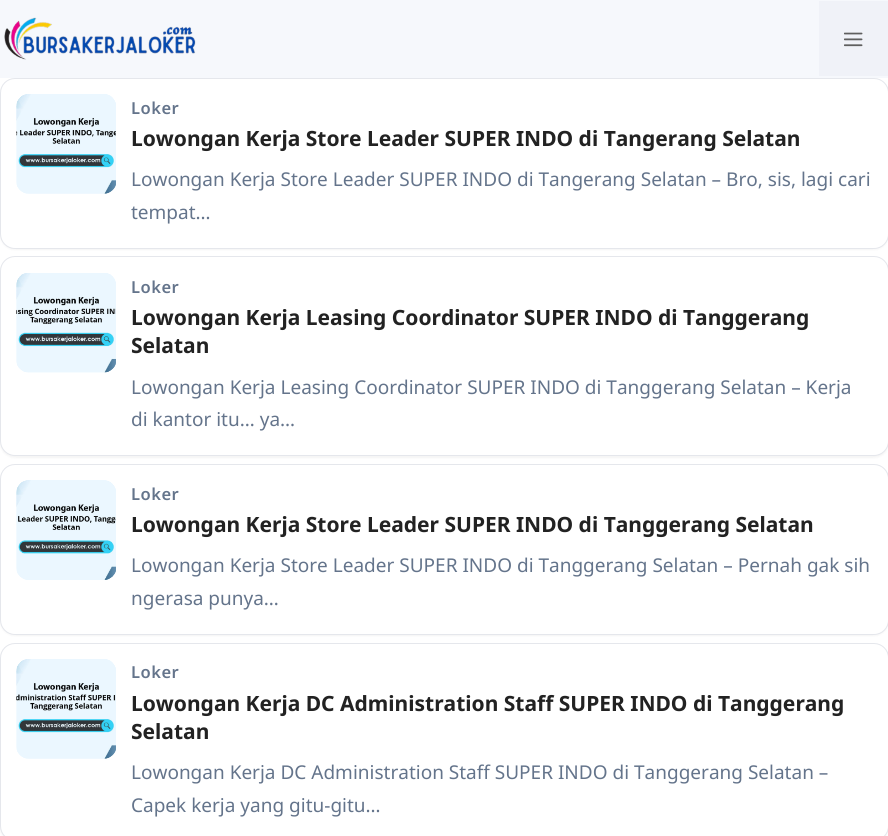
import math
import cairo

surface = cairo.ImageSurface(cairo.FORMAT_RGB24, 888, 836)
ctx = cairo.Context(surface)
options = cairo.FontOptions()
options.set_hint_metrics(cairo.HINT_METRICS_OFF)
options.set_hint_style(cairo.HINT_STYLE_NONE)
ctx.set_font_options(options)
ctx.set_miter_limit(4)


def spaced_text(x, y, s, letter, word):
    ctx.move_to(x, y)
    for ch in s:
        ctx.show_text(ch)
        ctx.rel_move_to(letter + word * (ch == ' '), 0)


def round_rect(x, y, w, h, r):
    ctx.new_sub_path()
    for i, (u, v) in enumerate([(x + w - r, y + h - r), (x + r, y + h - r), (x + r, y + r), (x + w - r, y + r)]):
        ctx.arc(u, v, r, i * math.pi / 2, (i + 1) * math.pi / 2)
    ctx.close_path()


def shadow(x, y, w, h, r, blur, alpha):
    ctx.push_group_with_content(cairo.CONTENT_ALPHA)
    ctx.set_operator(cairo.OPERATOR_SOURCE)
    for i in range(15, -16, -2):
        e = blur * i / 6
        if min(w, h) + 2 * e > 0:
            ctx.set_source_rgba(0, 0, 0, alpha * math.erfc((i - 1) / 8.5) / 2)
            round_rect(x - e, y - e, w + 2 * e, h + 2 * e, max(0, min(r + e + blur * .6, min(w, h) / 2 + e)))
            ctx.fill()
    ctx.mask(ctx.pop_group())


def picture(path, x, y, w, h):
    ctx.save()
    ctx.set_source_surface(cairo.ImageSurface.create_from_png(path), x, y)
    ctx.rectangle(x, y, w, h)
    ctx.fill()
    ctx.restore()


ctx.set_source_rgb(1, 1, 1)
ctx.paint()
ctx.set_source_rgb(0, 0, 0)
shadow(0, 79, 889, 171, 15, 1, 0.04)
ctx.set_source_rgb(0.961, 0.969, 0.988)
ctx.rectangle(0, 0, 888, 78)
ctx.fill()
picture("img1.png", 4, 17, 192, 43)
ctx.set_source_rgb(0.941, 0.949, 0.969)
ctx.rectangle(819, 1, 69, 75)
ctx.fill()
picture("img2.png", 844, 32, 19, 15)
ctx.set_source_rgb(1, 1, 1)
round_rect(0.5, 78.5, 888, 170, 14.5)
ctx.fill_preserve()
ctx.set_source_rgb(0.898, 0.906, 0.922)
ctx.set_line_width(1)
ctx.stroke()
picture("img3.png", 16, 94, 100, 100)
picture("img4.png", 16, 94, 100, 100)
ctx.select_font_face("Noto Sans SemiBold")
ctx.set_font_size(16.5)
ctx.set_source_rgb(0.392, 0.455, 0.545)
spaced_text(131, 114, "Loker", 0.5, 0)
ctx.select_font_face("Noto Sans", cairo.FONT_SLANT_NORMAL, cairo.FONT_WEIGHT_BOLD)
ctx.set_font_size(21)
ctx.set_source_rgb(0.133, 0.133, 0.133)
ctx.move_to(131, 146)
ctx.show_text("Lowongan Kerja Store Leader SUPER INDO di Tangerang Selatan")
ctx.select_font_face("Noto Sans")
ctx.set_font_size(19)
ctx.set_source_rgb(0.392, 0.455, 0.545)
ctx.move_to(131, 186)
ctx.show_text("Lowongan Kerja Store Leader SUPER INDO di Tangerang Selatan – Bro, sis, lagi cari")
ctx.move_to(131, 219)
ctx.show_text("tempat…")
ctx.set_source_rgb(0, 0, 0)
shadow(0, 258, 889, 200, 15, 1, 0.04)
ctx.set_source_rgb(1, 1, 1)
round_rect(0.5, 256.5, 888, 199, 14.5)
ctx.fill_preserve()
ctx.set_source_rgb(0.898, 0.906, 0.922)
ctx.stroke()
picture("img5.png", 16, 273, 100, 100)
picture("img6.png", 16, 273, 100, 100)
ctx.select_font_face("Noto Sans SemiBold")
ctx.set_font_size(16.5)
ctx.set_source_rgb(0.392, 0.455, 0.545)
spaced_text(131, 293, "Loker", 0.5, 0)
ctx.select_font_face("Noto Sans", cairo.FONT_SLANT_NORMAL, cairo.FONT_WEIGHT_BOLD)
ctx.set_font_size(21)
ctx.set_source_rgb(0.133, 0.133, 0.133)
ctx.move_to(131, 325)
ctx.show_text("Lowongan Kerja Leasing Coordinator SUPER INDO di Tanggerang")
ctx.move_to(131, 353)
ctx.show_text("Selatan")
ctx.select_font_face("Noto Sans")
ctx.set_font_size(19)
ctx.set_source_rgb(0.392, 0.455, 0.545)
ctx.move_to(131, 394)
ctx.show_text("Lowongan Kerja Leasing Coordinator SUPER INDO di Tanggerang Selatan – Kerja")
ctx.move_to(131, 426)
ctx.show_text("di kantor itu… ya…")
ctx.set_source_rgb(0, 0, 0)
shadow(0, 465, 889, 171, 15, 1, 0.04)
ctx.set_source_rgb(1, 1, 1)
round_rect(0.5, 464.5, 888, 170, 14.5)
ctx.fill_preserve()
ctx.set_source_rgb(0.898, 0.906, 0.922)
ctx.stroke()
picture("img7.png", 16, 480, 100, 100)
picture("img8.png", 16, 480, 100, 100)
ctx.select_font_face("Noto Sans SemiBold")
ctx.set_font_size(16.5)
ctx.set_source_rgb(0.392, 0.455, 0.545)
spaced_text(131, 500, "Loker", 0.5, 0)
ctx.select_font_face("Noto Sans", cairo.FONT_SLANT_NORMAL, cairo.FONT_WEIGHT_BOLD)
ctx.set_font_size(21)
ctx.set_source_rgb(0.133, 0.133, 0.133)
ctx.move_to(131, 532)
ctx.show_text("Lowongan Kerja Store Leader SUPER INDO di Tanggerang Selatan")
ctx.select_font_face("Noto Sans")
ctx.set_font_size(19)
ctx.set_source_rgb(0.392, 0.455, 0.545)
ctx.move_to(131, 572)
ctx.show_text("Lowongan Kerja Store Leader SUPER INDO di Tanggerang Selatan – Pernah gak sih")
ctx.move_to(131, 605)
ctx.show_text("ngerasa punya…")
ctx.set_source_rgb(0, 0, 0)
shadow(0, 644, 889, 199, 15, 1, 0.04)
ctx.set_source_rgb(1, 1, 1)
round_rect(0.5, 643.5, 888, 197, 14.5)
ctx.fill_preserve()
ctx.set_source_rgb(0.898, 0.906, 0.922)
ctx.stroke()
picture("img9.png", 16, 659, 100, 100)
picture("img10.png", 16, 659, 100, 100)
ctx.select_font_face("Noto Sans SemiBold")
ctx.set_font_size(16.5)
ctx.set_source_rgb(0.392, 0.455, 0.545)
spaced_text(131, 678, "Loker", 0.5, 0)
ctx.select_font_face("Noto Sans", cairo.FONT_SLANT_NORMAL, cairo.FONT_WEIGHT_BOLD)
ctx.set_font_size(21)
ctx.set_source_rgb(0.133, 0.133, 0.133)
ctx.move_to(131, 711)
ctx.show_text("Lowongan Kerja DC Administration Staff SUPER INDO di Tanggerang")
ctx.move_to(131, 739)
ctx.show_text("Selatan")
ctx.select_font_face("Noto Sans")
ctx.set_font_size(19)
ctx.set_source_rgb(0.392, 0.455, 0.545)
ctx.move_to(131, 779)
ctx.show_text("Lowongan Kerja DC Administration Staff SUPER INDO di Tanggerang Selatan –")
ctx.move_to(131, 812)
ctx.show_text("Capek kerja yang gitu-gitu…")
surface.write_to_png("page.png")
